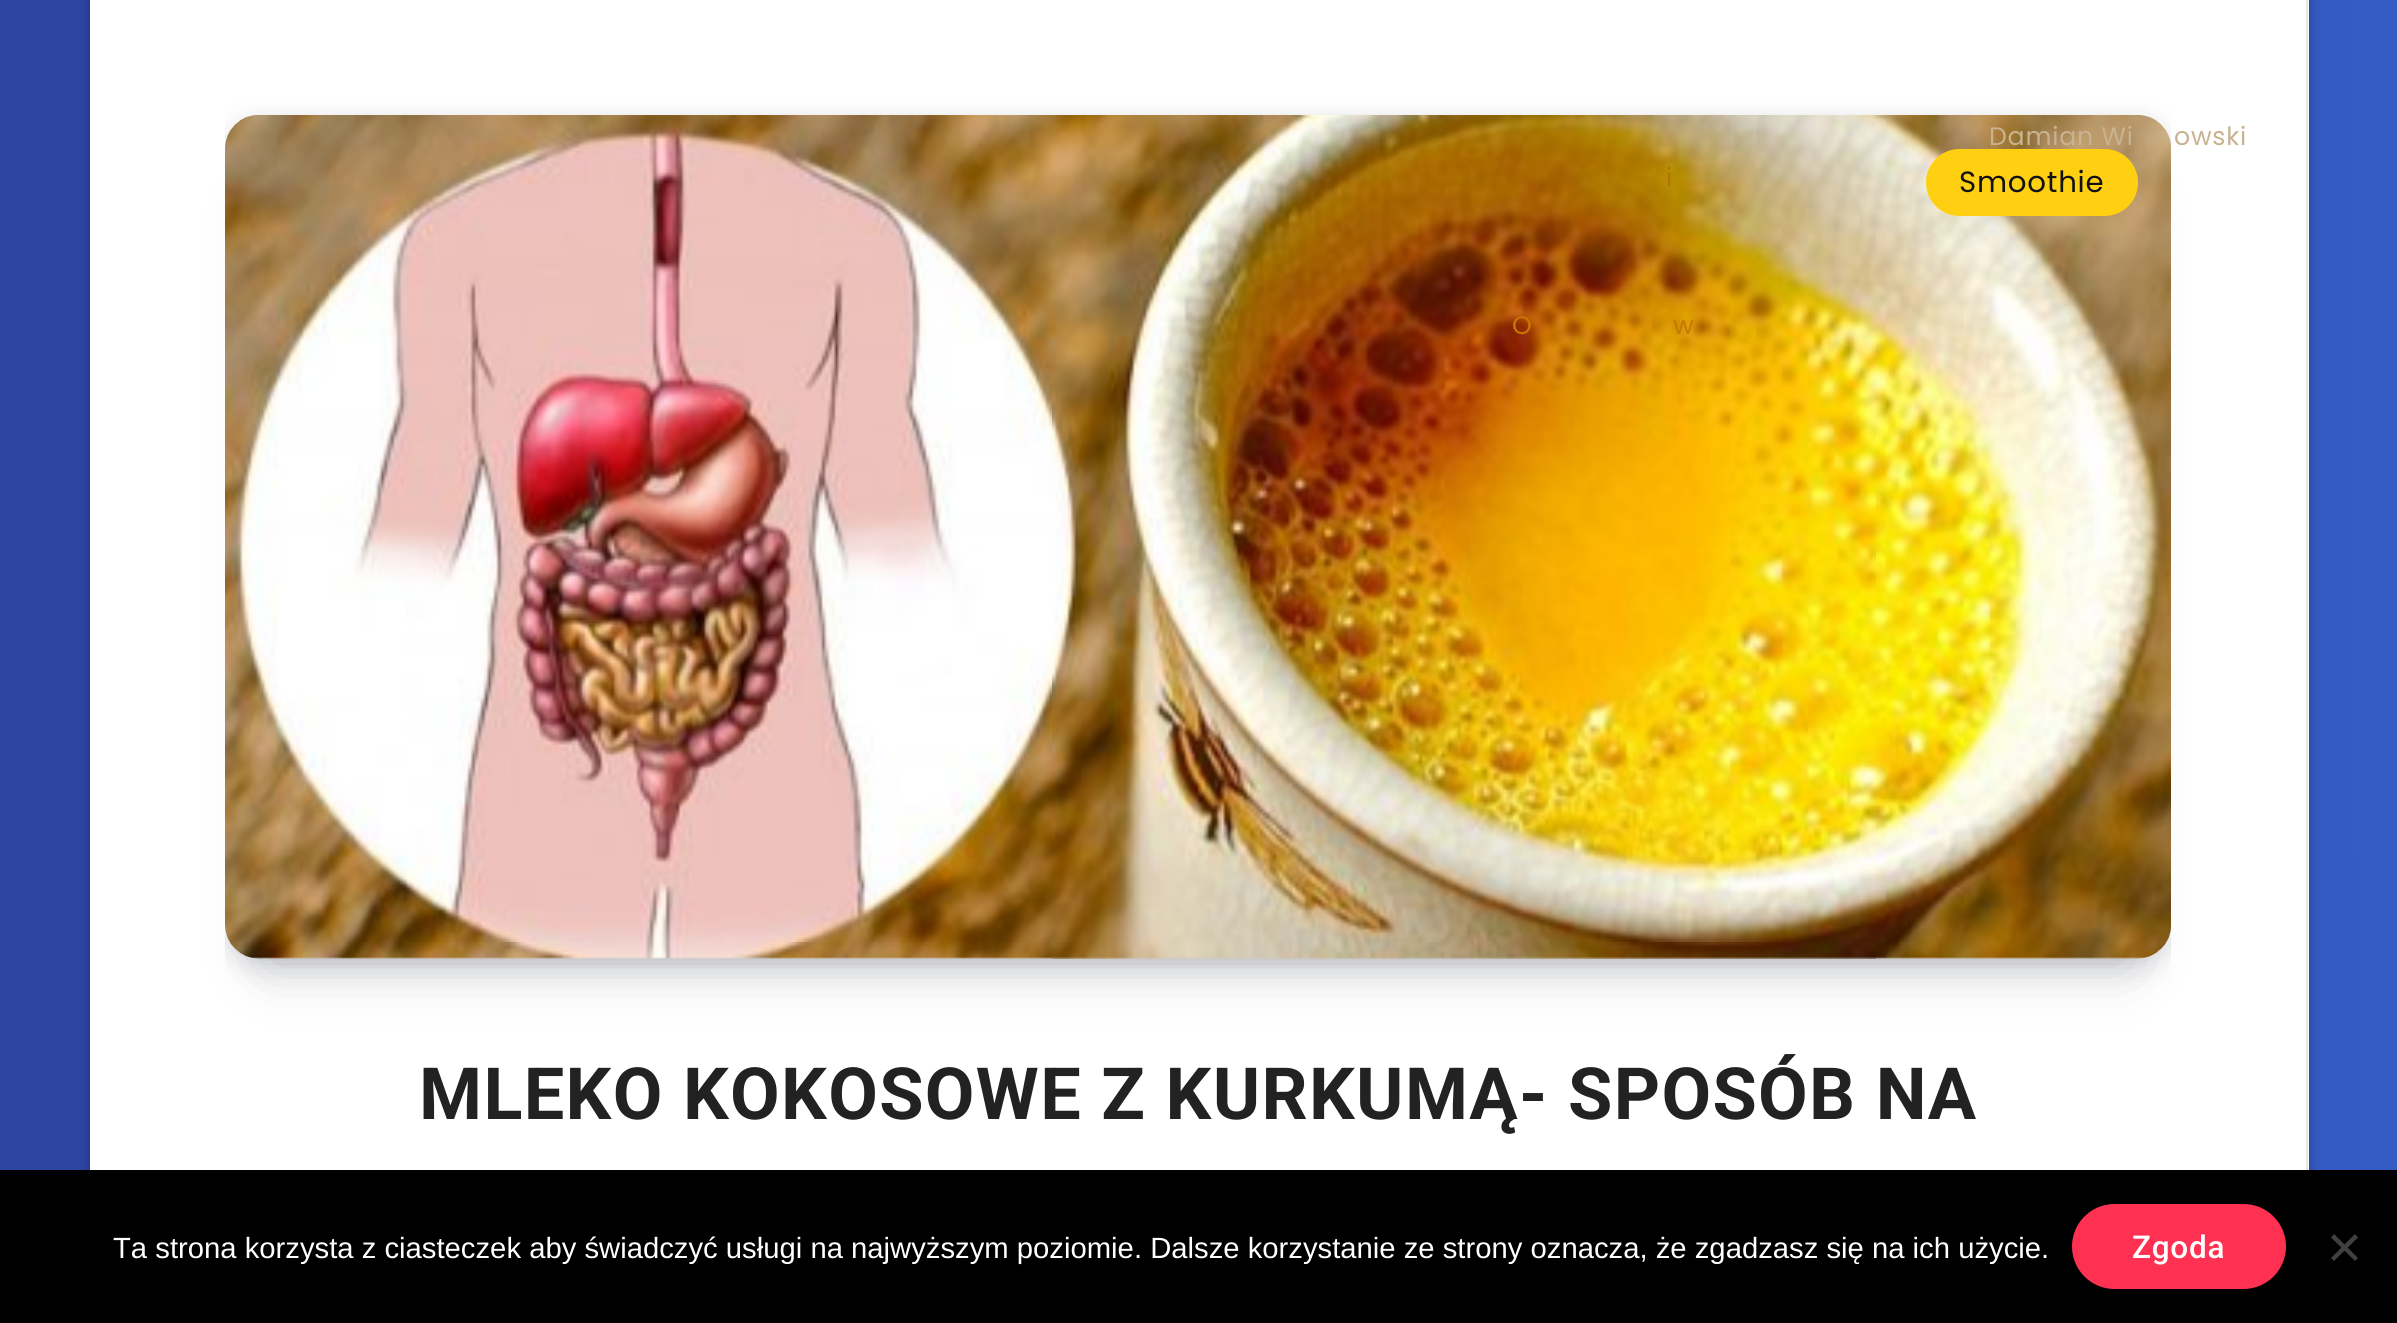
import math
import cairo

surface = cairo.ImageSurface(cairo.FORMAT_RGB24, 2397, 1323)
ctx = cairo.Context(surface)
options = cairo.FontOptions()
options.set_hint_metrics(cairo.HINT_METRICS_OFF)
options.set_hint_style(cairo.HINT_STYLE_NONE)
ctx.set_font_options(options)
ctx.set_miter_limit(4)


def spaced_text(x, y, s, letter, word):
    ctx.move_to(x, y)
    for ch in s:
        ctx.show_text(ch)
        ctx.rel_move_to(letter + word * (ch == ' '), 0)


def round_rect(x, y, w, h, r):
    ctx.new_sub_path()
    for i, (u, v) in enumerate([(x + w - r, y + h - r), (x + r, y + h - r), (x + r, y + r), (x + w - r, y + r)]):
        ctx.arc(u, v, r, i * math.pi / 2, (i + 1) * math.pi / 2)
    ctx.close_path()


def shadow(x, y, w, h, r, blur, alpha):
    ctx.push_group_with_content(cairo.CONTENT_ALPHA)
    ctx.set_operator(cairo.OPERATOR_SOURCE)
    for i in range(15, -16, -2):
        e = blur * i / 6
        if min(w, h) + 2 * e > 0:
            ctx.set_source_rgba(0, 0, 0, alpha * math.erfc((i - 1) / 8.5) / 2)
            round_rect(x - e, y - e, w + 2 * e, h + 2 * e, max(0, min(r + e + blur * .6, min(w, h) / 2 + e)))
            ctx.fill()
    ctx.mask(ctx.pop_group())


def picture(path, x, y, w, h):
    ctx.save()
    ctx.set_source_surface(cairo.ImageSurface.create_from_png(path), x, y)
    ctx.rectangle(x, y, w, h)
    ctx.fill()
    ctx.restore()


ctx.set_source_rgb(1, 1, 1)
ctx.paint()
gradient = cairo.LinearGradient(0, -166, 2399, -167)
gradient.add_color_stop_rgba(0.3, 0.173, 0.271, 0.639, 1)
gradient.add_color_stop_rgba(1, 0.208, 0.357, 0.773, 1)
ctx.set_source(gradient)
ctx.rectangle(0, 0, 2397, 1170)
ctx.fill()
ctx.set_source_rgb(0, 0, 0)
shadow(90, -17, 2219, 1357, 0, 5.5, 0.3)
ctx.set_source_rgb(1, 1, 1)
ctx.rectangle(90, 0, 2219, 1170)
ctx.fill()
ctx.set_source_rgb(0.027, 0.039, 0.098)
shadow(270, 209, 1856, 754, 0, 30.5, 0.2)
ctx.save()
ctx.rectangle(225, 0, 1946, 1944)
ctx.clip()
shadow(227, 124, 1942, 839, 32, 13.5, 0.2)
ctx.restore()
picture("img1.png", 225, 115, 1946, 844)
ctx.select_font_face("Poppins")
ctx.set_font_size(25.25)
ctx.set_source_rgb(0.788, 0.698, 0.565)
spaced_text(1989, 145, "Damian Wi", 0.75, 0)
spaced_text(2174, 145, "owski", 0.75, 0)
ctx.set_source_rgb(0.678, 0.459, 0.008)
spaced_text(1666, 186, "i", 0.75, 0)
ctx.set_source_rgb(0.78, 0.467, 0.016)
spaced_text(1512, 334, "O", 0.75, 0)
spaced_text(1673, 334, "w", 0.75, 0)
ctx.set_source_rgb(0.898, 0.898, 0.898)
ctx.rectangle(2306, 0, 2, 1170)
ctx.fill()
ctx.set_source_rgb(1, 0.816, 0.071)
round_rect(1926, 149, 212, 67, 33.5)
ctx.fill()
ctx.set_font_size(29.25)
ctx.set_source_rgb(0.067, 0.067, 0.067)
spaced_text(1959, 192, "Smoothie", 0.75, 0)
ctx.select_font_face("Roboto", cairo.FONT_SLANT_NORMAL, cairo.FONT_WEIGHT_BOLD)
ctx.set_font_size(72)
ctx.set_source_rgb(0.133, 0.133, 0.133)
spaced_text(419, 1119, "MLEKO KOKOSOWE Z KURKUMĄ- SPOSÓB NA", 1.35, 0)
ctx.set_source_rgb(0, 0, 0)
ctx.rectangle(0, 1170, 2397, 153)
ctx.fill()
ctx.select_font_face("Liberation Sans")
ctx.set_font_size(29.25)
ctx.set_source_rgb(1, 1, 1)
ctx.move_to(113, 1258)
ctx.show_text("Ta strona korzysta z ciasteczek aby świadczyć usługi na najwyższym poziomie. Dalsze korzystanie ze strony oznacza, że zgadzasz się na ich użycie.")
ctx.set_source_rgb(1, 0.192, 0.322)
round_rect(2072, 1204, 214, 85, 42.5)
ctx.fill()
ctx.select_font_face("Roboto Medium")
ctx.set_font_size(31.5)
ctx.set_source_rgb(1, 1, 1)
spaced_text(2132, 1258, "Zgoda", 0.75, 0)
ctx.set_source_rgb(0.251, 0.251, 0.251)
ctx.new_path()
ctx.move_to(2355, 1234)
ctx.line_to(2358, 1237.5)
ctx.line_to(2334, 1261)
ctx.line_to(2331, 1258)
ctx.close_path()
ctx.fill()
ctx.new_path()
ctx.move_to(2331, 1237.5)
ctx.line_to(2334, 1234)
ctx.line_to(2358, 1258)
ctx.line_to(2355, 1261)
ctx.close_path()
ctx.fill()
surface.write_to_png("page.png")
